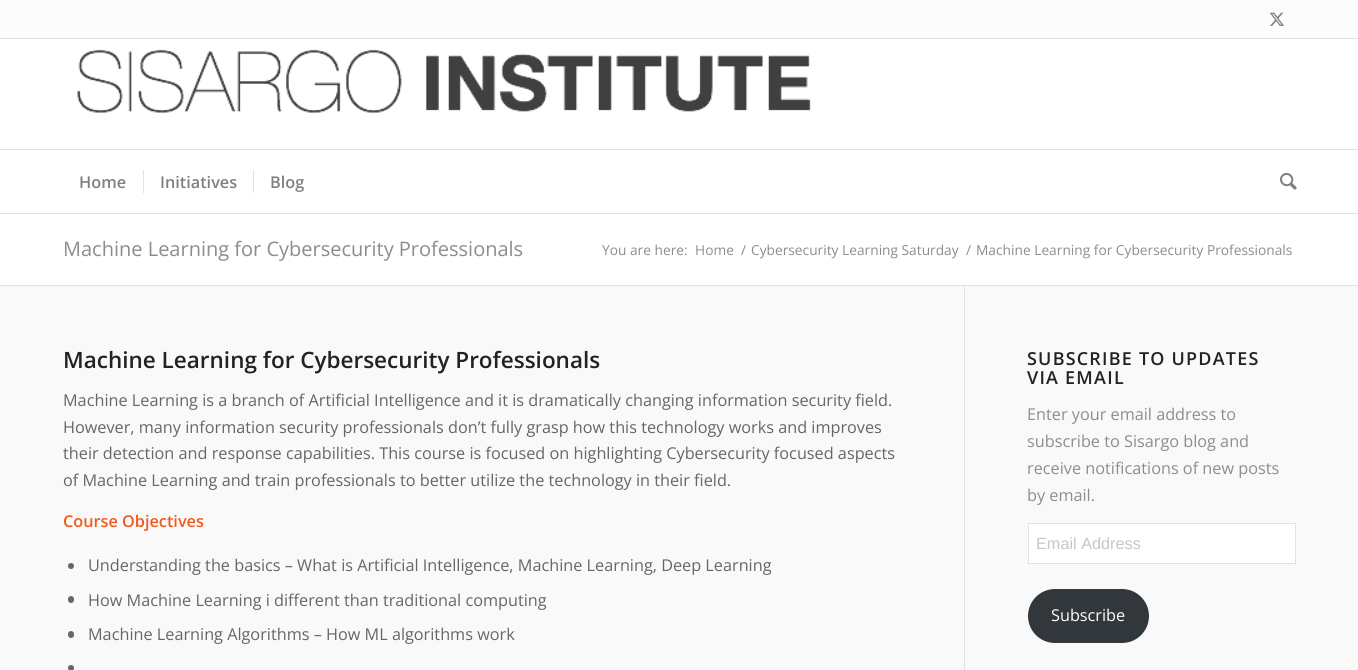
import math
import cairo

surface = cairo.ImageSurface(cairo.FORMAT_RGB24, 1358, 670)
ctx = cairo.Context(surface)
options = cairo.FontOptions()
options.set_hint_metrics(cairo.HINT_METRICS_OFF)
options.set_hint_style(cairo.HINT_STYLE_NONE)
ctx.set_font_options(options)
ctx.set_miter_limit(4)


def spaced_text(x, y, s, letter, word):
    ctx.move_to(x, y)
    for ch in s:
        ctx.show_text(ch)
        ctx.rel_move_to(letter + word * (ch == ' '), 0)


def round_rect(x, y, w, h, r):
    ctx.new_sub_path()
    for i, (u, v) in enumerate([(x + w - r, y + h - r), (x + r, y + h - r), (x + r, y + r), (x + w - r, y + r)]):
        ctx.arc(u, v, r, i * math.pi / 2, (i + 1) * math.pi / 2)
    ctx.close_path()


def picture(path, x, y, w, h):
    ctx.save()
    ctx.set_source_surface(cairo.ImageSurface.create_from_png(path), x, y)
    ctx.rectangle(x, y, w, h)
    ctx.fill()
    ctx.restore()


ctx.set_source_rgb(1, 1, 1)
ctx.paint()
ctx.set_source_rgb(0.988, 0.988, 0.988)
ctx.rectangle(0, 0, 1358, 38)
ctx.fill()
ctx.set_source_rgb(0.882, 0.882, 0.882)
ctx.rectangle(0, 38, 1358, 1)
ctx.fill()
picture("img1.png", 1269, 12, 15, 14)
ctx.rectangle(0, 213, 1358, 1)
ctx.fill()
picture("img2.png", 77, 49, 734, 64)
ctx.rectangle(0, 149, 1358, 1)
ctx.fill()
ctx.select_font_face("Open Sans SemiBold")
ctx.set_font_size(16.25)
ctx.set_source_rgb(0.502, 0.502, 0.502)
ctx.move_to(79, 188)
ctx.show_text("Home")
ctx.move_to(160, 188)
ctx.show_text("Initiatives")
ctx.set_source_rgb(0.882, 0.882, 0.882)
ctx.rectangle(143, 170, 1, 23)
ctx.fill()
ctx.set_source_rgb(0.502, 0.502, 0.502)
ctx.move_to(270, 188)
ctx.show_text("Blog")
ctx.set_source_rgb(0.882, 0.882, 0.882)
ctx.rectangle(253, 170, 1, 23)
ctx.fill()
picture("img3.png", 1280, 172, 17, 18)
ctx.select_font_face("Open Sans")
ctx.set_font_size(20)
ctx.set_source_rgb(0.553, 0.553, 0.553)
ctx.move_to(63, 256)
ctx.show_text("Machine Learning for Cybersecurity Professionals")
ctx.set_font_size(13.75)
ctx.move_to(602, 255)
ctx.show_text("You are here:")
ctx.move_to(695, 255)
ctx.show_text("Home")
ctx.move_to(741, 255)
ctx.show_text("/")
ctx.move_to(751, 255)
ctx.show_text("Cybersecurity Learning Saturday")
ctx.move_to(966, 255)
ctx.show_text("/")
ctx.move_to(976, 255)
ctx.show_text("Machine Learning for Cybersecurity Professionals")
ctx.set_source_rgb(0.973, 0.973, 0.973)
ctx.rectangle(0, 286, 1358, 384)
ctx.fill()
ctx.set_source_rgb(0.882, 0.882, 0.882)
ctx.rectangle(0, 285, 1358, 1)
ctx.fill()
ctx.rectangle(964, 286, 1, 384)
ctx.fill()
ctx.select_font_face("Open Sans SemiBold")
ctx.set_font_size(22.5)
ctx.set_source_rgb(0.133, 0.133, 0.133)
ctx.move_to(63, 368)
ctx.show_text("Machine Learning for Cybersecurity Professionals")
ctx.select_font_face("Open Sans")
ctx.set_font_size(16.25)
ctx.set_source_rgb(0.4, 0.4, 0.4)
ctx.move_to(63, 406)
ctx.show_text("Machine Learning is a branch of Artificial Intelligence and it is dramatically changing information security field.")
ctx.move_to(63, 433)
ctx.show_text("However, many information security professionals don’t fully grasp how this technology works and improves")
ctx.move_to(63, 459)
ctx.show_text("their detection and response capabilities. This course is focused on highlighting Cybersecurity focused aspects")
ctx.move_to(63, 486)
ctx.show_text("of Machine Learning and train professionals to better utilize the technology in their field.")
ctx.select_font_face("Open Sans SemiBold")
ctx.set_source_rgb(0.941, 0.353, 0.102)
ctx.move_to(63, 527)
ctx.show_text("Course Objectives")
ctx.set_source_rgb(0.4, 0.4, 0.4)
ctx.new_path()
ctx.arc(71, 566, 3, 0, 2 * math.pi)
ctx.fill()
ctx.select_font_face("Open Sans")
ctx.move_to(88, 571)
ctx.show_text("Understanding the basics – What is Artificial Intelligence, Machine Learning, Deep Learning")
round_rect(68, 596, 6, 7, 3)
ctx.fill()
ctx.move_to(88, 606)
ctx.show_text("How Machine Learning i different than traditional computing")
round_rect(68, 631, 6, 7, 3)
ctx.fill()
ctx.move_to(88, 640)
ctx.show_text("Machine Learning Algorithms – How ML algorithms work")
ctx.new_path()
ctx.arc(71, 668, 3, 0, 2 * math.pi)
ctx.fill()
ctx.select_font_face("Open Sans SemiBold")
ctx.set_font_size(17.9)
ctx.set_source_rgb(0.133, 0.133, 0.133)
spaced_text(1027, 365, "SUBSCRIBE TO UPDATES", 1.25, 0)
spaced_text(1027, 384, "VIA EMAIL", 1.25, 0)
ctx.select_font_face("Open Sans")
ctx.set_font_size(16.25)
ctx.set_source_rgb(0.553, 0.553, 0.553)
ctx.move_to(1027, 420)
ctx.show_text("Enter your email address to")
ctx.move_to(1027, 447)
ctx.show_text("subscribe to Sisargo blog and")
ctx.move_to(1027, 474)
ctx.show_text("receive notifications of new posts")
ctx.move_to(1027, 501)
ctx.show_text("by email.")
ctx.set_source_rgb(1, 1, 1)
ctx.rectangle(1028.5, 523.5, 267, 40)
ctx.fill_preserve()
ctx.set_source_rgb(0.882, 0.882, 0.882)
ctx.set_line_width(1)
ctx.stroke()
ctx.select_font_face("Liberation Sans")
ctx.set_source_rgb(0.776, 0.776, 0.776)
ctx.move_to(1036, 549)
ctx.show_text("Email Address")
ctx.set_source_rgb(0.196, 0.216, 0.235)
round_rect(1028, 589, 121, 54, 27)
ctx.fill()
ctx.select_font_face("Open Sans")
ctx.set_source_rgb(1, 1, 1)
ctx.move_to(1051, 621)
ctx.show_text("Subscribe")
surface.write_to_png("page.png")
